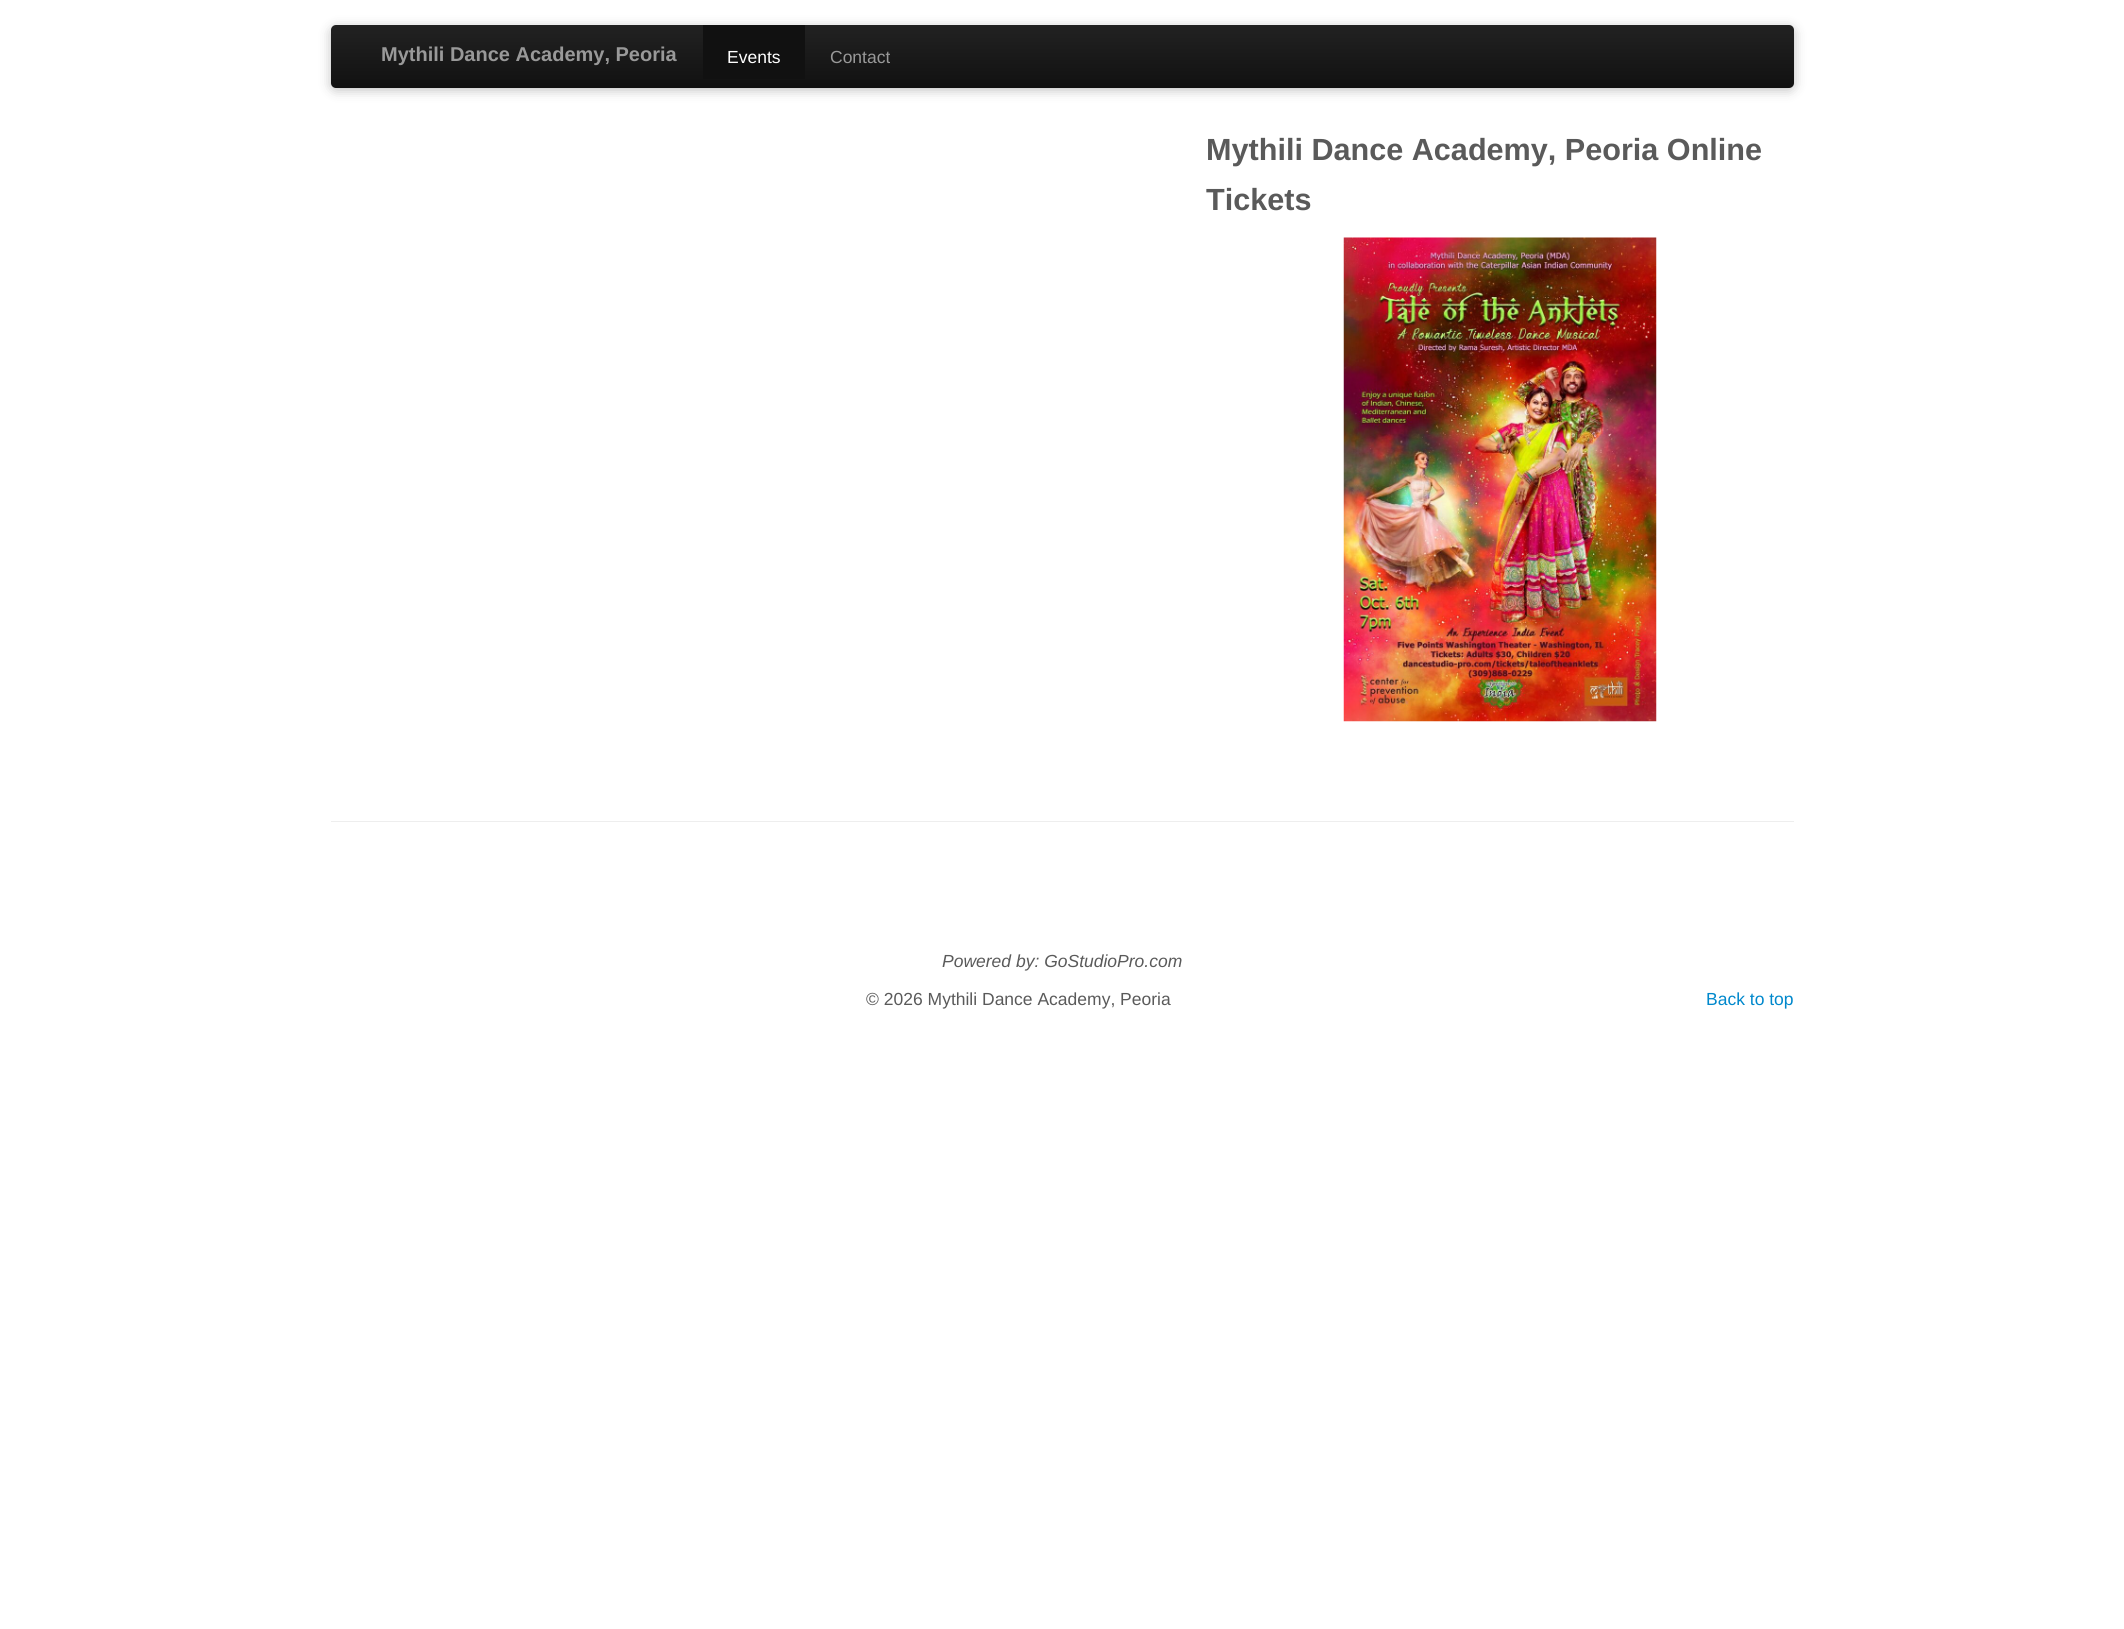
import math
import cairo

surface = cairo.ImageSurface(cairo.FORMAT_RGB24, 2124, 1629)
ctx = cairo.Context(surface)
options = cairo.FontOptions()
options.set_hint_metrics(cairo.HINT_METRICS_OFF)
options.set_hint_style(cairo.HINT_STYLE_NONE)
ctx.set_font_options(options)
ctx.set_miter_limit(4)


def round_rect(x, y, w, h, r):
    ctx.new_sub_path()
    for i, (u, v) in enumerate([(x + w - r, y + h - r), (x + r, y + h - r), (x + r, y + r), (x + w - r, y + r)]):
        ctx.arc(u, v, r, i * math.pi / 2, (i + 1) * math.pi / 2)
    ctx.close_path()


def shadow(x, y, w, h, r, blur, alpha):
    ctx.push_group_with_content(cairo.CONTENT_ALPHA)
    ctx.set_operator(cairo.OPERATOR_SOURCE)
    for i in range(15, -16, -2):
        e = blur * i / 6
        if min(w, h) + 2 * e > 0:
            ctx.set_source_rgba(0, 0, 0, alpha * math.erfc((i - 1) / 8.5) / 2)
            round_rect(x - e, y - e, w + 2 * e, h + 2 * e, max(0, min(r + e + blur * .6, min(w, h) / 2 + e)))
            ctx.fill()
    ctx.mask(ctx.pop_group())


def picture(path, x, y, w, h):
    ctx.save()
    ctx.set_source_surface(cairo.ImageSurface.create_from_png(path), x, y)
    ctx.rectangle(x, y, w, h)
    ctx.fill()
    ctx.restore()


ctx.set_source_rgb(1, 1, 1)
ctx.paint()
ctx.set_source_rgb(0, 0, 0)
shadow(331, 28, 1463, 62, 5, 6, 0.25)
gradient = cairo.LinearGradient(1063, 25, 1063, 88)
gradient.add_color_stop_rgba(0, 0.133, 0.133, 0.133, 1)
gradient.add_color_stop_rgba(1, 0.067, 0.067, 0.067, 1)
ctx.set_source(gradient)
round_rect(331, 25, 1463, 63, 5)
ctx.fill()
ctx.select_font_face("Liberation Sans", cairo.FONT_SLANT_NORMAL, cairo.FONT_WEIGHT_BOLD)
ctx.set_font_size(20)
ctx.set_source_rgb(0.6, 0.6, 0.6)
ctx.move_to(381, 61)
ctx.show_text("Mythili Dance Academy, Peoria")
ctx.set_source_rgb(0.067, 0.067, 0.067)
ctx.rectangle(703, 25, 102, 54)
ctx.fill()
ctx.select_font_face("Liberation Sans")
ctx.set_font_size(17.5)
ctx.set_source_rgb(1, 1, 1)
ctx.move_to(727, 63)
ctx.show_text("Events")
ctx.set_source_rgb(0.6, 0.6, 0.6)
ctx.move_to(830, 63)
ctx.show_text("Contact")
ctx.select_font_face("Liberation Sans", cairo.FONT_SLANT_NORMAL, cairo.FONT_WEIGHT_BOLD)
ctx.set_font_size(30.6)
ctx.set_source_rgb(0.353, 0.353, 0.353)
ctx.move_to(1206, 160)
ctx.show_text("Mythili Dance Academy, Peoria Online")
ctx.move_to(1206, 210)
ctx.show_text("Tickets")
picture("img1.png", 1343, 237, 314, 485)
ctx.set_source_rgb(0.933, 0.933, 0.933)
ctx.rectangle(331, 821, 1463, 1)
ctx.fill()
ctx.select_font_face("Liberation Sans", cairo.FONT_SLANT_ITALIC)
ctx.set_font_size(17.5)
ctx.set_source_rgb(0.353, 0.353, 0.353)
ctx.move_to(942, 967)
ctx.show_text("Powered by: GoStudioPro.com")
ctx.select_font_face("Liberation Sans")
ctx.move_to(866, 1005)
ctx.show_text("© 2026 Mythili Dance Academy, Peoria")
ctx.set_source_rgb(0, 0.533, 0.8)
ctx.move_to(1706, 1005)
ctx.show_text("Back to top")
surface.write_to_png("page.png")
